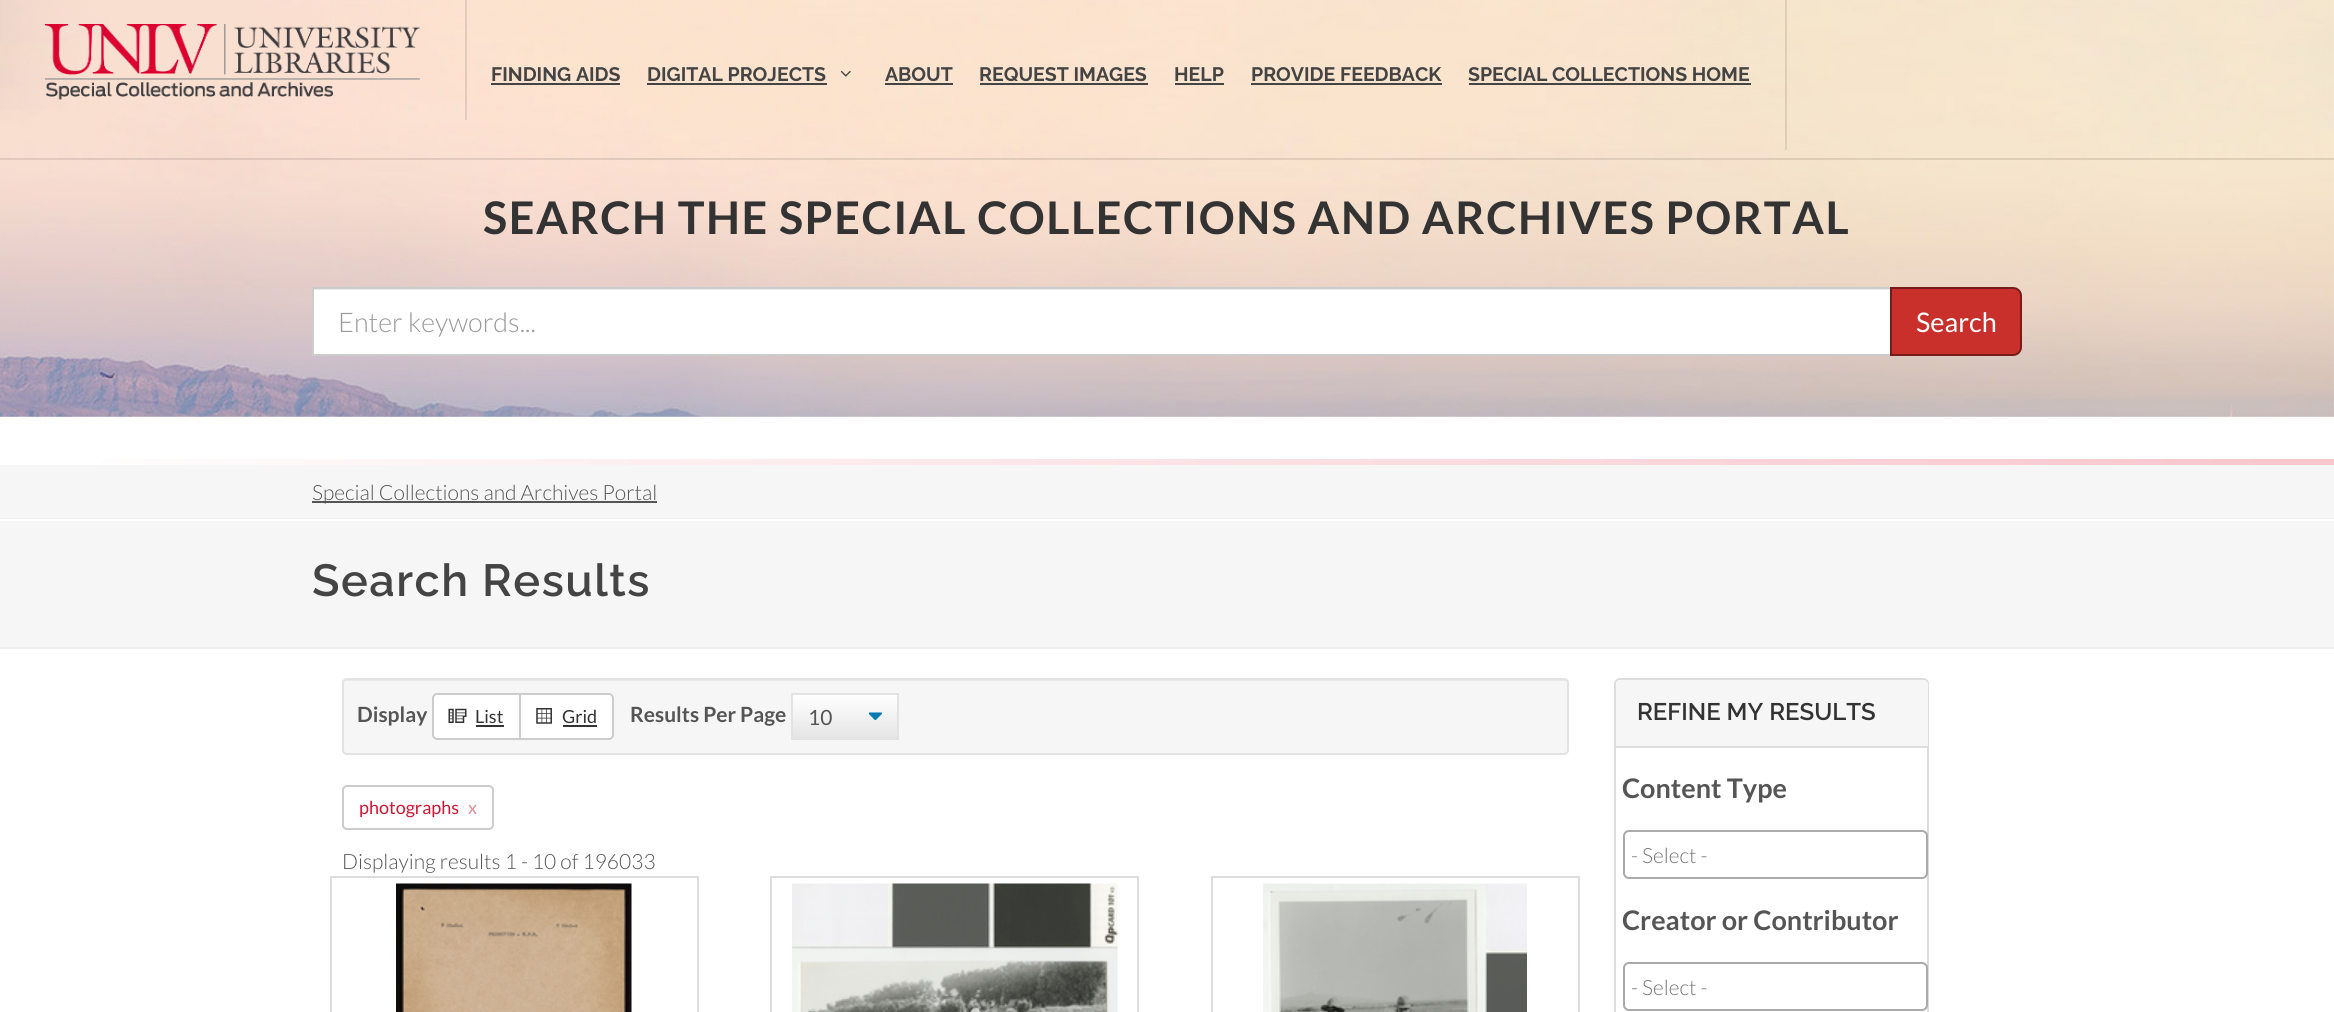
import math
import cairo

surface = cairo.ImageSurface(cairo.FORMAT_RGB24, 2334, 1012)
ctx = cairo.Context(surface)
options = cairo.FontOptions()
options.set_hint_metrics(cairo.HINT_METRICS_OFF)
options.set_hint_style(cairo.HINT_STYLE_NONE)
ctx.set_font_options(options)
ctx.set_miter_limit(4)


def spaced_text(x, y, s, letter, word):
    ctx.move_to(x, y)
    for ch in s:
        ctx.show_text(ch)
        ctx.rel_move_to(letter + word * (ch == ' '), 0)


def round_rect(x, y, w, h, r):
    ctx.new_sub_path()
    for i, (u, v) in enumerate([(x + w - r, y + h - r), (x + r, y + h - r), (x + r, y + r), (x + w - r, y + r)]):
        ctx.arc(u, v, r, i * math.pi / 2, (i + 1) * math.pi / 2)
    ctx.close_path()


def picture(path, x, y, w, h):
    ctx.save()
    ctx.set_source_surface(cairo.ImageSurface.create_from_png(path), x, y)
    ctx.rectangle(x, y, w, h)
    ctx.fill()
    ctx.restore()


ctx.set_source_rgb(1, 1, 1)
ctx.paint()
picture("img3.png", 0, 0, 2334, 417)
ctx.set_source_rgba(0, 0, 0, 0.1)
ctx.rectangle(0, 158, 2334, 2)
ctx.fill()
ctx.rectangle(465, 0, 2, 120)
ctx.fill()
picture("img1.png", 45, 24, 375, 76)
ctx.rectangle(1785, 0, 2, 150)
ctx.fill()
ctx.select_font_face("Raleway", cairo.FONT_SLANT_NORMAL, cairo.FONT_WEIGHT_BOLD)
ctx.set_font_size(19.5)
ctx.set_source_rgb(0.267, 0.267, 0.267)
ctx.move_to(491, 81)
ctx.show_text("FINDING AIDS")
ctx.rectangle(491, 83, 129, 2)
ctx.fill()
ctx.move_to(647, 81)
ctx.show_text("DIGITAL PROJECTS")
ctx.rectangle(647, 83, 180, 2)
ctx.fill()
picture("img2.png", 840, 70, 11, 7)
ctx.move_to(885, 81)
ctx.show_text("ABOUT")
ctx.rectangle(885, 83, 68, 2)
ctx.fill()
ctx.move_to(979, 81)
ctx.show_text("REQUEST IMAGES")
ctx.rectangle(980, 83, 168, 2)
ctx.fill()
ctx.move_to(1174, 81)
ctx.show_text("HELP")
ctx.rectangle(1175, 83, 49, 2)
ctx.fill()
ctx.move_to(1251, 81)
ctx.show_text("PROVIDE FEEDBACK")
ctx.rectangle(1251, 83, 191, 2)
ctx.fill()
ctx.move_to(1468, 81)
ctx.show_text("SPECIAL COLLECTIONS HOME")
ctx.rectangle(1469, 83, 282, 2)
ctx.fill()
ctx.select_font_face("Lato", cairo.FONT_SLANT_NORMAL, cairo.FONT_WEIGHT_BOLD)
ctx.set_font_size(45)
ctx.set_source_rgb(0.2, 0.2, 0.2)
spaced_text(483, 234, "SEARCH THE SPECIAL COLLECTIONS AND ARCHIVES PORTAL", 1.5, 0)
ctx.set_source_rgb(1, 1, 1)
ctx.rectangle(314, 290, 1576, 64)
ctx.fill()
ctx.set_source_rgb(0.925, 0.925, 0.925)
ctx.rectangle(314, 289, 1576, 1)
ctx.fill()
ctx.rectangle(313, 288, 1578, 67)
ctx.set_source_rgb(0.8, 0.8, 0.8)
ctx.stroke()
ctx.select_font_face("Lato Light")
ctx.set_font_size(27)
ctx.set_source_rgb(0.6, 0.6, 0.6)
ctx.move_to(338, 332)
ctx.show_text("Enter keywords...")
ctx.set_source_rgb(0.788, 0.188, 0.173)
ctx.new_path()
ctx.move_to(1891, 288)
ctx.line_to(2013, 288)
ctx.curve_to(2017.5, 288, 2021, 291.5, 2021, 296)
ctx.line_to(2021, 347)
ctx.curve_to(2021, 351.5, 2017.5, 355, 2013, 355)
ctx.line_to(1891, 355)
ctx.close_path()
ctx.fill_preserve()
ctx.set_source_rgb(0.463, 0.11, 0.098)
ctx.stroke()
ctx.select_font_face("Lato")
ctx.set_source_rgb(1, 1, 1)
ctx.move_to(1916, 332)
ctx.show_text("Search")
gradient = cairo.LinearGradient(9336, 471, 0, 471)
gradient.add_color_stop_rgba(0, 0.89, 0.098, 0.212, 1)
gradient.add_color_stop_rgba(1, 1, 1, 1, 1)
ctx.set_source(gradient)
ctx.rectangle(102, 459, 2232, 6)
ctx.fill()
ctx.set_source_rgb(0.961, 0.961, 0.961)
ctx.rectangle(0, 465, 2334, 53)
ctx.fill()
ctx.set_source_rgb(0.933, 0.933, 0.933)
ctx.rectangle(0, 518, 2334, 1)
ctx.fill()
ctx.set_source_rgb(0.333, 0.333, 0.333)
ctx.rectangle(312, 501, 345, 2)
ctx.fill()
ctx.select_font_face("Lato Light")
ctx.set_font_size(21)
ctx.move_to(312, 500)
ctx.show_text("Special Collections and Archives Portal")
ctx.set_source_rgb(0.961, 0.961, 0.961)
ctx.rectangle(0, 521, 2334, 126)
ctx.fill()
ctx.set_source_rgb(0.933, 0.933, 0.933)
ctx.rectangle(0, 647, 2334, 2)
ctx.fill()
ctx.select_font_face("Raleway SemiBold")
ctx.set_font_size(45)
ctx.set_source_rgb(0.267, 0.267, 0.267)
spaced_text(312, 596, "Search Results", 1.5, 0)
ctx.set_source_rgb(0.961, 0.961, 0.961)
round_rect(342, 678, 1227, 77, 5)
ctx.fill()
ctx.set_source_rgb(0.914, 0.914, 0.914)
ctx.new_path()
ctx.move_to(346, 681)
ctx.line_to(1564, 681)
ctx.curve_to(1566, 681, 1568, 682, 1568, 684)
ctx.line_to(1568, 683)
ctx.curve_to(1568, 681, 1567, 680, 1565, 680)
ctx.line_to(347, 680)
ctx.curve_to(345, 680, 344, 681, 344, 683)
ctx.line_to(344, 684)
ctx.curve_to(344, 682, 345, 681, 346, 681)
ctx.close_path()
ctx.fill()
round_rect(343, 679, 1225, 75, 4)
ctx.set_source_rgb(0.89, 0.89, 0.89)
ctx.stroke()
ctx.select_font_face("Lato", cairo.FONT_SLANT_NORMAL, cairo.FONT_WEIGHT_BOLD)
ctx.set_font_size(21)
ctx.set_source_rgb(0.333, 0.333, 0.333)
ctx.move_to(357, 722)
ctx.show_text("Display")
ctx.set_source_rgb(1, 1, 1)
ctx.new_path()
ctx.move_to(437, 694)
ctx.line_to(520, 694)
ctx.line_to(520, 739)
ctx.line_to(437, 739)
ctx.curve_to(435, 739, 433, 737, 433, 735)
ctx.line_to(433, 698)
ctx.curve_to(433, 696, 435, 694, 437, 694)
ctx.close_path()
ctx.fill_preserve()
ctx.set_source_rgb(0.8, 0.8, 0.8)
ctx.stroke()
picture("img4.png", 448, 708, 19, 15)
ctx.select_font_face("Lato")
ctx.set_font_size(18)
ctx.set_source_rgb(0.2, 0.2, 0.2)
ctx.move_to(475, 723)
ctx.show_text("List")
ctx.rectangle(476, 725, 28, 2)
ctx.fill()
ctx.set_source_rgb(1, 1, 1)
ctx.new_path()
ctx.move_to(520, 694)
ctx.line_to(609, 694)
ctx.curve_to(611, 694, 613, 696, 613, 698)
ctx.line_to(613, 735)
ctx.curve_to(613, 737, 611, 739, 609, 739)
ctx.line_to(520, 739)
ctx.close_path()
ctx.fill_preserve()
ctx.set_source_rgb(0.8, 0.8, 0.8)
ctx.stroke()
picture("img5.png", 536, 708, 16, 16)
ctx.set_source_rgb(0.2, 0.2, 0.2)
ctx.move_to(562, 723)
ctx.show_text("Grid")
ctx.rectangle(563, 725, 34, 2)
ctx.fill()
ctx.select_font_face("Lato", cairo.FONT_SLANT_NORMAL, cairo.FONT_WEIGHT_BOLD)
ctx.set_font_size(21)
ctx.set_source_rgb(0.333, 0.333, 0.333)
ctx.move_to(630, 722)
ctx.show_text("Results Per Page")
gradient = cairo.LinearGradient(845, 695, 845, 738)
gradient.add_color_stop_rgba(0, 1, 1, 1, 1)
gradient.add_color_stop_rgba(1, 0.898, 0.898, 0.898, 1)
ctx.set_source(gradient)
ctx.rectangle(793, 695, 104, 43)
ctx.fill()
picture("img6.png", 869, 712, 13, 9)
ctx.rectangle(792, 694, 106, 45)
ctx.set_source_rgb(0.89, 0.89, 0.89)
ctx.stroke()
ctx.select_font_face("Lato")
ctx.set_source_rgb(0.333, 0.333, 0.333)
ctx.move_to(808, 725)
ctx.show_text("10")
round_rect(343, 786, 150, 43, 4)
ctx.set_source_rgb(0.8, 0.8, 0.8)
ctx.stroke()
ctx.set_font_size(18)
ctx.set_source_rgb(0.812, 0.09, 0.196)
ctx.move_to(359, 814)
ctx.show_text("photographs")
ctx.set_source_rgb(0.906, 0.545, 0.6)
ctx.move_to(468, 814)
ctx.show_text("x")
ctx.select_font_face("Lato Light")
ctx.set_font_size(21)
ctx.set_source_rgb(0.333, 0.333, 0.333)
ctx.move_to(342, 869)
ctx.show_text("Displaying results 1 - 10 of 196033")
ctx.rectangle(331, 877, 367, 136)
ctx.set_source_rgb(0.867, 0.867, 0.867)
ctx.stroke()
picture("img7.png", 396, 883, 236, 129)
ctx.rectangle(771, 877, 367, 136)
ctx.stroke()
picture("img8.png", 792, 883, 326, 129)
ctx.rectangle(1212, 877, 367, 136)
ctx.stroke()
picture("img9.png", 1263, 883, 264, 129)
round_rect(1615, 679, 313, 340, 5)
ctx.stroke()
ctx.set_source_rgb(0.961, 0.961, 0.961)
ctx.new_path()
ctx.move_to(1621, 680)
ctx.line_to(1923, 680)
ctx.curve_to(1926, 680, 1928, 682, 1928, 685)
ctx.line_to(1928, 747)
ctx.line_to(1616, 747)
ctx.line_to(1616, 685)
ctx.curve_to(1616, 682, 1618, 680, 1621, 680)
ctx.close_path()
ctx.fill()
ctx.set_source_rgb(0.867, 0.867, 0.867)
ctx.rectangle(1616, 746, 312, 2)
ctx.fill()
ctx.select_font_face("Raleway SemiBold")
ctx.set_font_size(24)
ctx.set_source_rgb(0.2, 0.2, 0.2)
ctx.move_to(1637, 720)
ctx.show_text("REFINE MY RESULTS")
ctx.select_font_face("Lato", cairo.FONT_SLANT_NORMAL, cairo.FONT_WEIGHT_BOLD)
ctx.set_font_size(27)
ctx.set_source_rgb(0.333, 0.333, 0.333)
ctx.move_to(1622, 798)
ctx.show_text("Content Type")
ctx.set_source_rgb(1, 1, 1)
round_rect(1624, 831, 303, 47, 5)
ctx.fill_preserve()
ctx.set_source_rgb(0.667, 0.667, 0.667)
ctx.stroke()
ctx.select_font_face("Lato Light")
ctx.set_font_size(21)
ctx.set_source_rgb(0.459, 0.459, 0.459)
ctx.move_to(1631, 863)
ctx.show_text("- Select -")
ctx.select_font_face("Lato", cairo.FONT_SLANT_NORMAL, cairo.FONT_WEIGHT_BOLD)
ctx.set_font_size(27)
ctx.set_source_rgb(0.333, 0.333, 0.333)
ctx.move_to(1622, 930)
ctx.show_text("Creator or Contributor")
ctx.set_source_rgb(1, 1, 1)
round_rect(1624, 963, 303, 47, 5)
ctx.fill_preserve()
ctx.set_source_rgb(0.667, 0.667, 0.667)
ctx.stroke()
ctx.select_font_face("Lato Light")
ctx.set_font_size(21)
ctx.set_source_rgb(0.459, 0.459, 0.459)
ctx.move_to(1631, 995)
ctx.show_text("- Select -")
surface.write_to_png("page.png")
